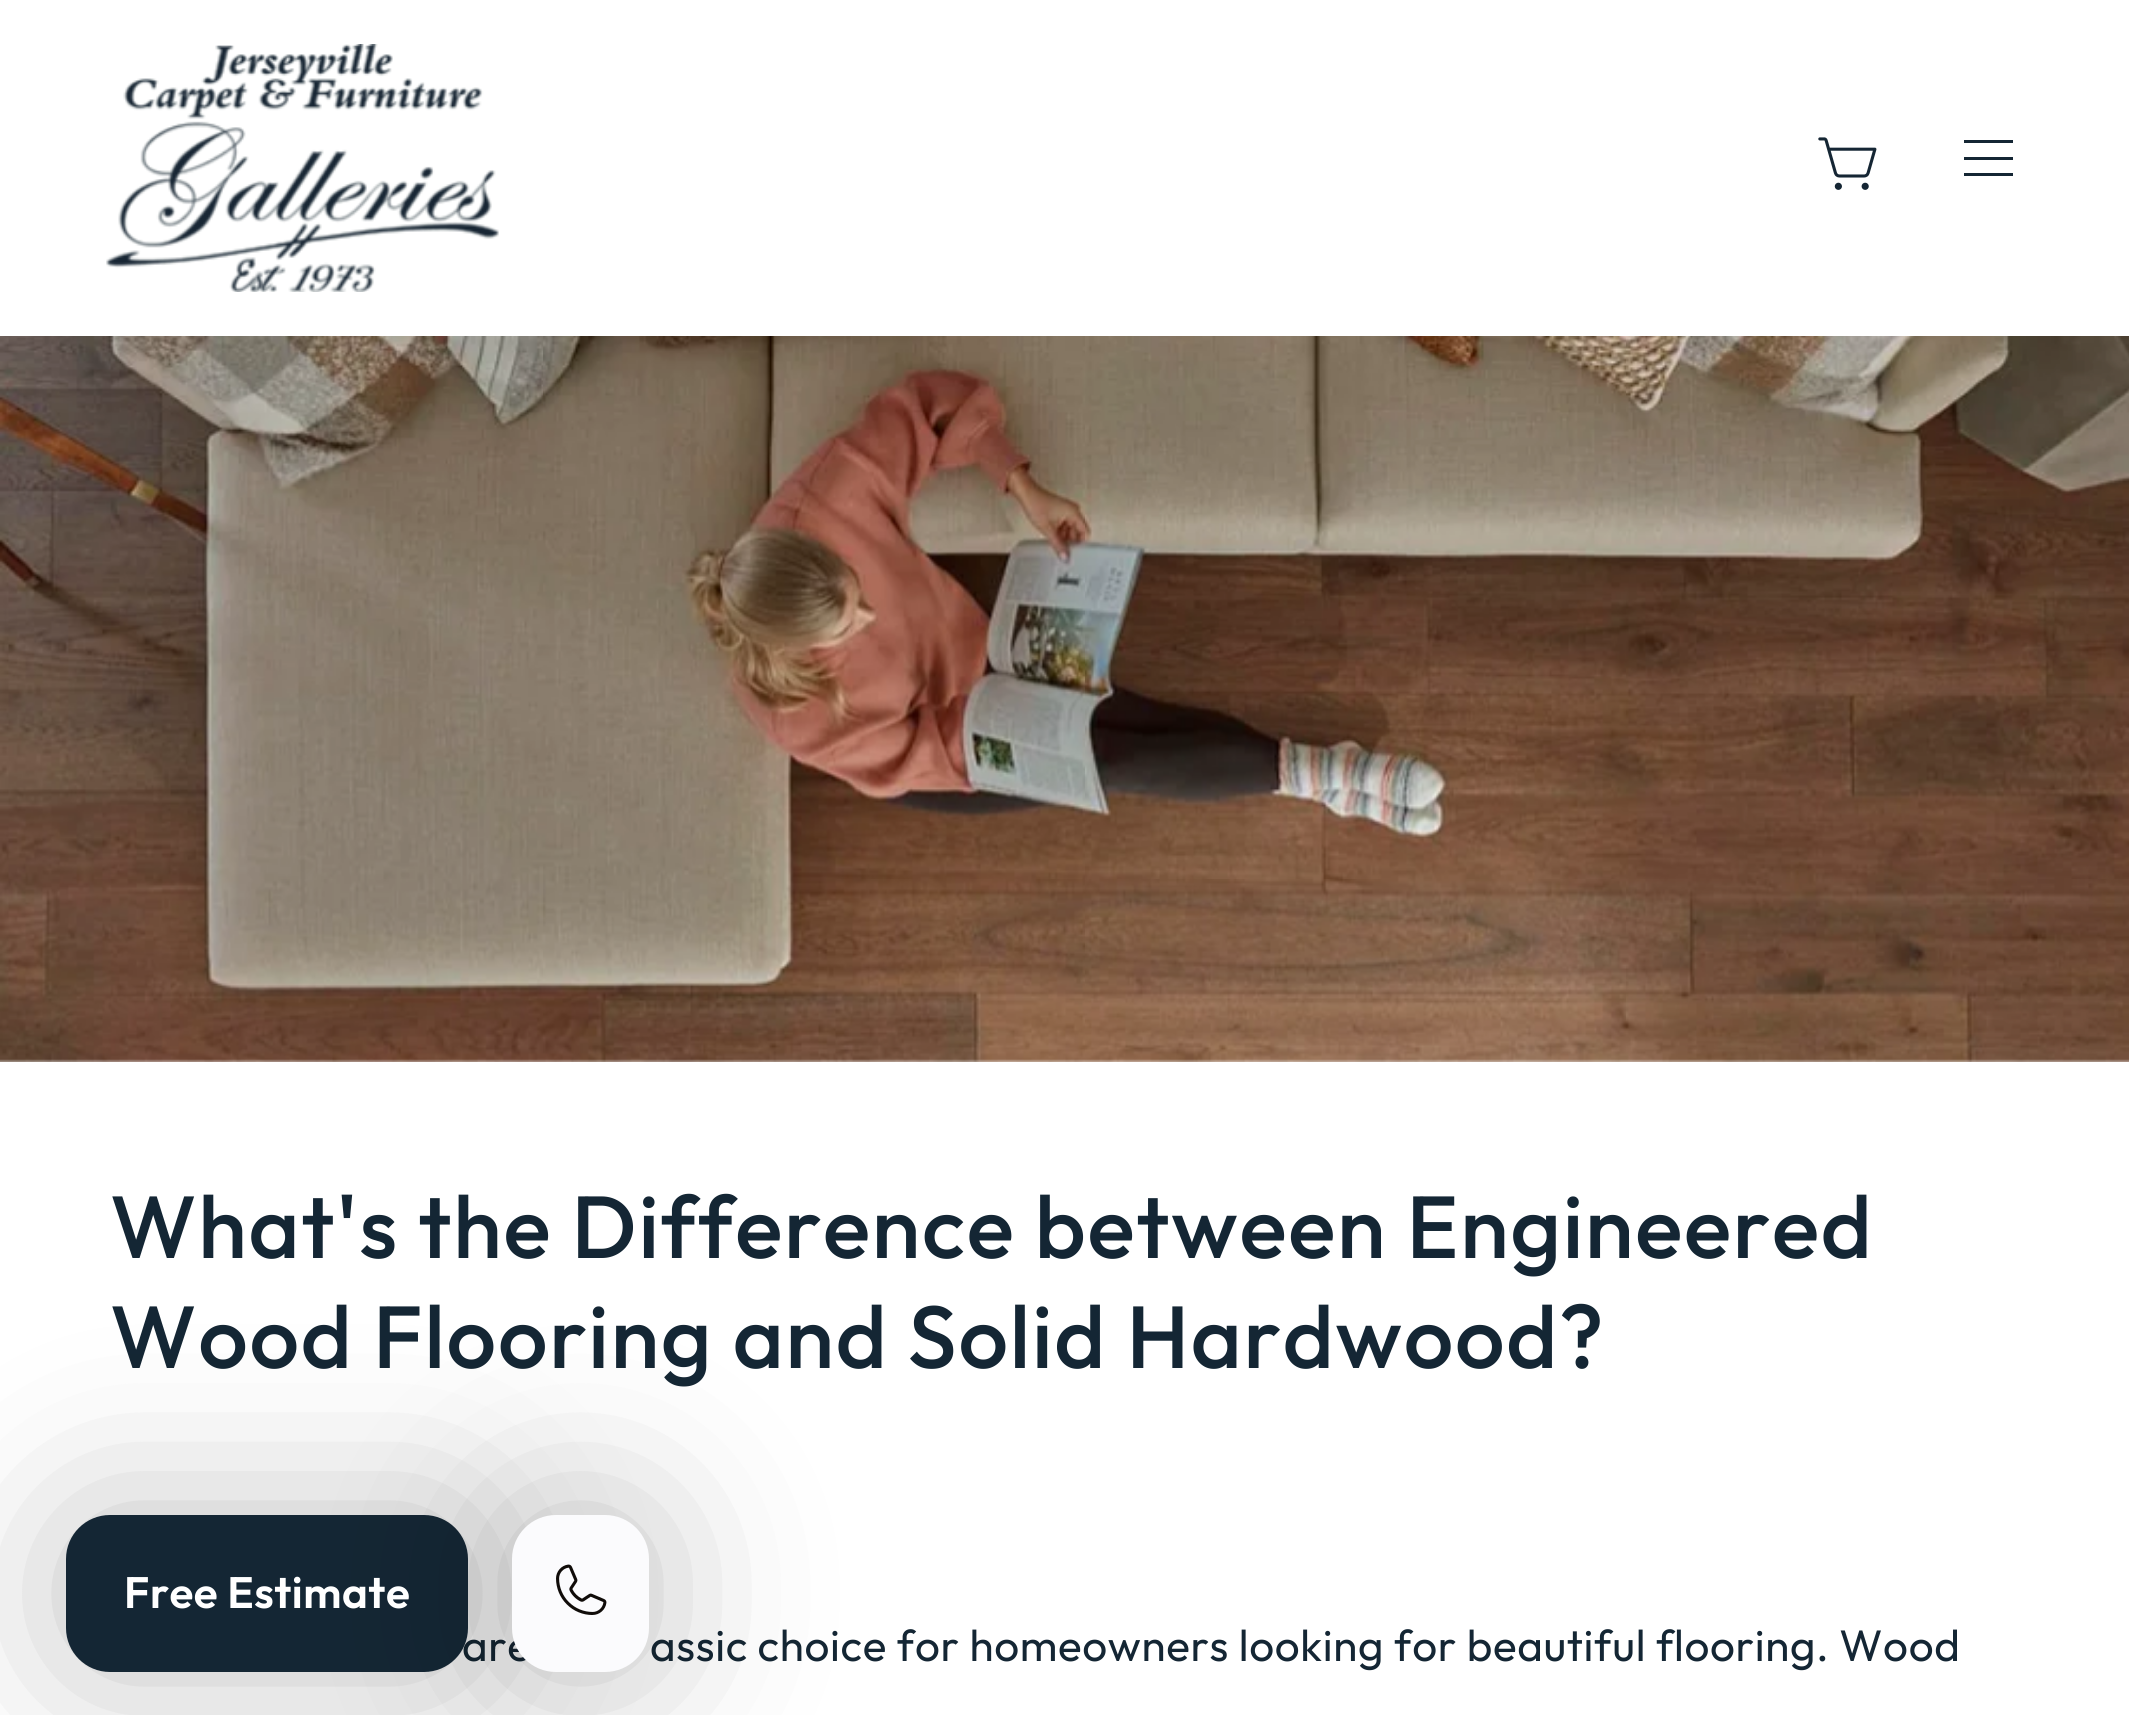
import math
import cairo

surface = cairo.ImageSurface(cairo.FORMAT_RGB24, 2129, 1715)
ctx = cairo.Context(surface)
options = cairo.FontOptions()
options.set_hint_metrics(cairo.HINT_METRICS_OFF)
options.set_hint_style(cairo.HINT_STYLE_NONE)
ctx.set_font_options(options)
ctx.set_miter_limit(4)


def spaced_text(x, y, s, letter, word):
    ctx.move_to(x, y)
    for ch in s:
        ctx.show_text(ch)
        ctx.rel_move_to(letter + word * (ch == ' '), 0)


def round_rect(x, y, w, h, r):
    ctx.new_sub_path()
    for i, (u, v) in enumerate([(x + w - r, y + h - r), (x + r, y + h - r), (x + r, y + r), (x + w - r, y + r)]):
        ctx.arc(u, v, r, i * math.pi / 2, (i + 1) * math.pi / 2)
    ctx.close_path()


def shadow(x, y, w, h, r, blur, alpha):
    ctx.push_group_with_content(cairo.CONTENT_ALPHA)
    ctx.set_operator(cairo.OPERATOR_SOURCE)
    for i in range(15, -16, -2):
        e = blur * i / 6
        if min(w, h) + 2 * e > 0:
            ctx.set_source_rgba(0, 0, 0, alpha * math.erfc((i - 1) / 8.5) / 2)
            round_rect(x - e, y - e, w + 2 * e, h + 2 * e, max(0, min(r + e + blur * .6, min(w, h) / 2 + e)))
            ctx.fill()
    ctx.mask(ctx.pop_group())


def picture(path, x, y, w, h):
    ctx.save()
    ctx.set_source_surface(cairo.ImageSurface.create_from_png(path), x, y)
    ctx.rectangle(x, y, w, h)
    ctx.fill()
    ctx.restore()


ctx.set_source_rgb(1, 1, 1)
ctx.paint()
picture("img1.png", 0, 336, 2129, 726)
ctx.select_font_face("Outfit Medium")
ctx.set_font_size(88)
ctx.set_source_rgb(0.082, 0.149, 0.204)
spaced_text(110, 1258, "What's the Difference between Engineered", 1.75, 0)
spaced_text(110, 1368, "Wood Flooring and Solid Hardwood?", 1.75, 0)
ctx.select_font_face("Outfit")
ctx.set_font_size(44)
spaced_text(462, 1661, "are", 0.65, 0)
spaced_text(650, 1661, "assic choice for homeowners looking for beautiful flooring. Wood", 0.65, 0)
picture("img2.png", 106, 44, 393, 248)
picture("img3.png", 1818, 137, 59, 53)
ctx.rectangle(1964, 157, 49, 3)
ctx.fill()
ctx.rectangle(1964, 140, 49, 3)
ctx.fill()
ctx.rectangle(1964, 173, 49, 3)
ctx.fill()
ctx.set_source_rgb(0, 0, 0)
shadow(66, 1515, 402, 157, 44, 88, 0.25)
ctx.set_source_rgb(0.082, 0.149, 0.204)
round_rect(67.5, 1516.5, 399, 154, 42.5)
ctx.fill_preserve()
ctx.set_line_width(3)
ctx.stroke()
ctx.set_source_rgb(0, 0, 0)
shadow(512, 1515, 137, 157, 44, 88, 0.25)
ctx.set_source_rgb(0.984, 0.984, 0.992)
round_rect(513.5, 1516.5, 134, 154, 42.5)
ctx.fill_preserve()
ctx.stroke()
picture("img4.png", 556, 1564, 51, 51)
ctx.select_font_face("Outfit SemiBold")
ctx.set_source_rgb(1, 1, 1)
spaced_text(124, 1608, "Free Estimate", 0.5, 0)
surface.write_to_png("page.png")
